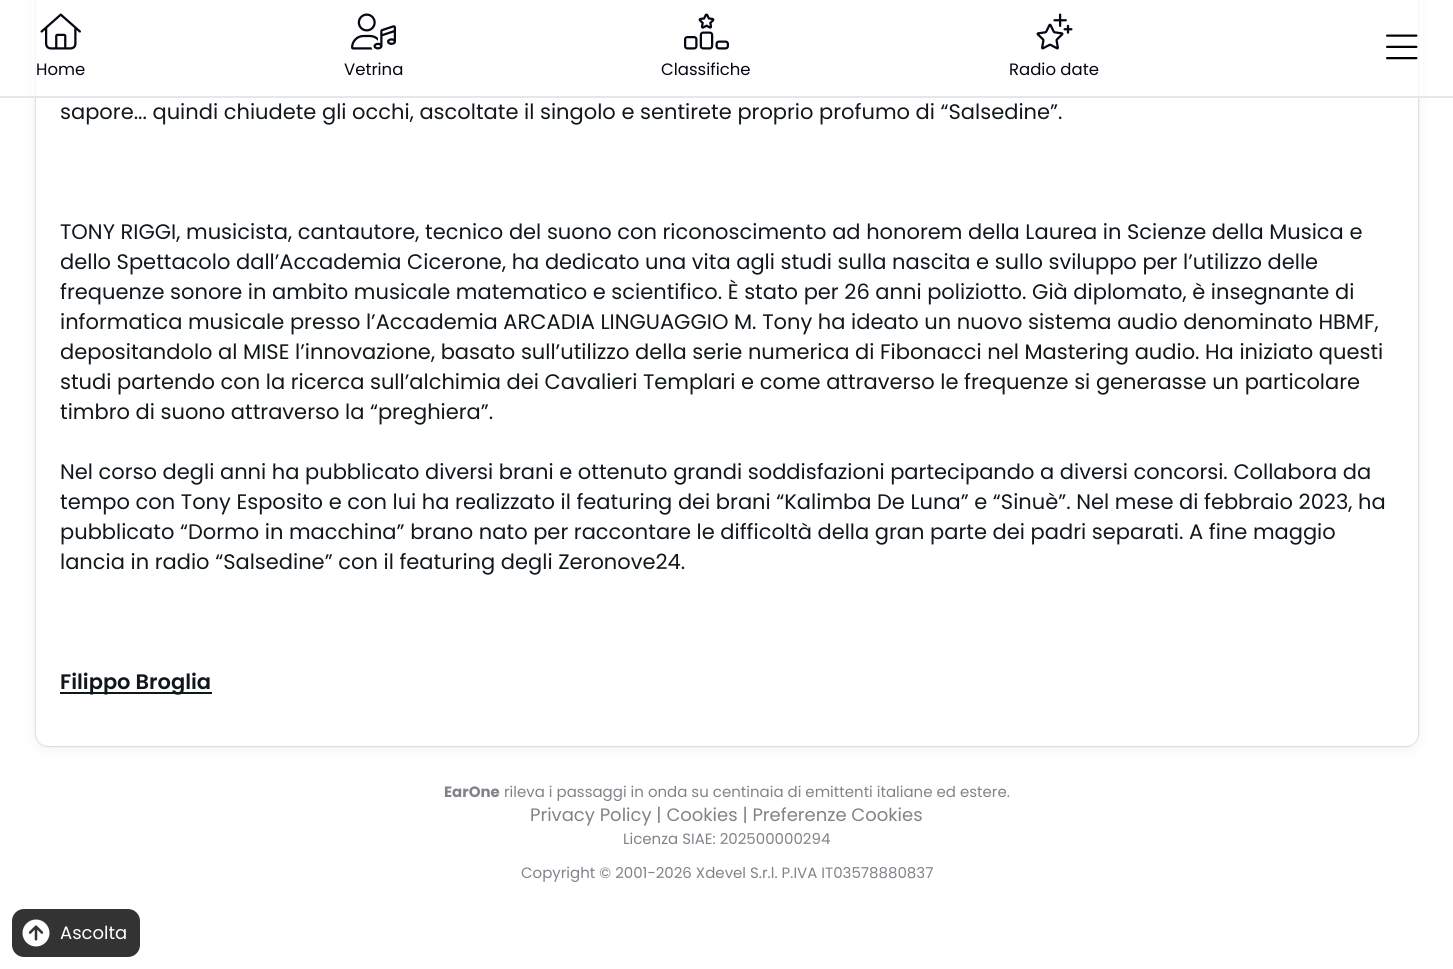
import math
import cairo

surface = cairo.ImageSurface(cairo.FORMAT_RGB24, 1453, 969)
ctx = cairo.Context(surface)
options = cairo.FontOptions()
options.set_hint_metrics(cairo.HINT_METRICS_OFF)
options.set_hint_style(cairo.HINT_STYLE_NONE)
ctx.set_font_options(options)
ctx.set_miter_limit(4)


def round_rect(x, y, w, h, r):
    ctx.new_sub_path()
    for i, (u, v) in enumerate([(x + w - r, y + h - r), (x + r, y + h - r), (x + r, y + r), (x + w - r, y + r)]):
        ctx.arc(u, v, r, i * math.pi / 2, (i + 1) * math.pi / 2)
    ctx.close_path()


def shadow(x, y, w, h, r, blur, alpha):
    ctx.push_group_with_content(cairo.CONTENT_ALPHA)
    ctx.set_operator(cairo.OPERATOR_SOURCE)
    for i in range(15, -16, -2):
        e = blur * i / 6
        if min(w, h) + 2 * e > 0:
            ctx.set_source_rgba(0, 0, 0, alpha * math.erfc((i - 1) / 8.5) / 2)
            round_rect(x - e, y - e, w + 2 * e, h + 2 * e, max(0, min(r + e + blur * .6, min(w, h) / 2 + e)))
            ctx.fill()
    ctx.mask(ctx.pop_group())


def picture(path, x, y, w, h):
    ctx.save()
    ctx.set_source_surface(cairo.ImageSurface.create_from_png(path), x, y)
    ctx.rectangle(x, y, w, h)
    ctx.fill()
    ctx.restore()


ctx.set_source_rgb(1, 1, 1)
ctx.paint()
ctx.set_source_rgb(0, 0, 0)
shadow(36, -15, 1382, 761, 12, 1, 0.3)
shadow(36, -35, 1382, 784, 12, 7.5, 0.06)
ctx.set_source_rgb(1, 1, 1)
round_rect(36, -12, 1382, 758, 12)
ctx.fill()
ctx.set_source_rgba(1, 1, 1, 0.7)
ctx.rectangle(31, 0, 1392, 96)
ctx.fill()
ctx.set_source_rgb(0.898, 0.906, 0.922)
ctx.rectangle(0, 96, 1453, 2)
ctx.fill()
picture("img1.png", 1386, 34, 32, 26)
picture("img2.png", 40, 13, 41, 37)
ctx.select_font_face("Poppins")
ctx.set_font_size(16.5)
ctx.set_source_rgb(0.012, 0.027, 0.071)
ctx.move_to(36, 75)
ctx.show_text("Home")
picture("img3.png", 351, 13, 45, 37)
ctx.move_to(344, 75)
ctx.show_text("Vetrina")
picture("img4.png", 684, 13, 45, 37)
ctx.move_to(661, 75)
ctx.show_text("Classifiche")
picture("img5.png", 1036, 13, 37, 37)
ctx.move_to(1009, 75)
ctx.show_text("Radio date")
ctx.set_font_size(21)
ctx.set_source_rgb(0.067, 0.094, 0.11)
ctx.move_to(60, 119)
ctx.show_text("sapore... quindi chiudete gli occhi, ascoltate il singolo e sentirete proprio profumo di “Salsedine”.")
ctx.move_to(60, 239)
ctx.show_text("TONY RIGGI, musicista, cantautore, tecnico del suono con riconoscimento ad honorem della Laurea in Scienze della Musica e")
ctx.move_to(60, 269)
ctx.show_text("dello Spettacolo dall’Accademia Cicerone, ha dedicato una vita agli studi sulla nascita e sullo sviluppo per l’utilizzo delle")
ctx.move_to(60, 299)
ctx.show_text("frequenze sonore in ambito musicale matematico e scientifico. È stato per 26 anni poliziotto. Già diplomato, è insegnante di")
ctx.move_to(60, 329)
ctx.show_text("informatica musicale presso l’Accademia ARCADIA LINGUAGGIO M. Tony ha ideato un nuovo sistema audio denominato HBMF,")
ctx.move_to(60, 359)
ctx.show_text("depositandolo al MISE l’innovazione, basato sull’utilizzo della serie numerica di Fibonacci nel Mastering audio. Ha iniziato questi")
ctx.move_to(60, 389)
ctx.show_text("studi partendo con la ricerca sull’alchimia dei Cavalieri Templari e come attraverso le frequenze si generasse un particolare")
ctx.move_to(60, 419)
ctx.show_text("timbro di suono attraverso la “preghiera”.")
ctx.move_to(60, 479)
ctx.show_text("Nel corso degli anni ha pubblicato diversi brani e ottenuto grandi soddisfazioni partecipando a diversi concorsi. Collabora da")
ctx.move_to(60, 509)
ctx.show_text("tempo con Tony Esposito e con lui ha realizzato il featuring dei brani “Kalimba De Luna” e “Sinuè”. Nel mese di febbraio 2023, ha")
ctx.move_to(60, 539)
ctx.show_text("pubblicato “Dormo in macchina” brano nato per raccontare le difficoltà della gran parte dei padri separati. A fine maggio")
ctx.move_to(60, 569)
ctx.show_text("lancia in radio “Salsedine” con il featuring degli Zeronove24.")
ctx.rectangle(60, 692, 152, 2)
ctx.fill()
ctx.select_font_face("Poppins SemiBold")
ctx.move_to(60, 689)
ctx.show_text("Filippo Broglia")
ctx.select_font_face("Poppins", cairo.FONT_SLANT_NORMAL, cairo.FONT_WEIGHT_BOLD)
ctx.set_font_size(15)
ctx.set_source_rgb(0.506, 0.514, 0.537)
ctx.move_to(444, 797)
ctx.show_text("EarOne")
ctx.select_font_face("Poppins")
ctx.move_to(504, 797)
ctx.show_text("rileva i passaggi in onda su centinaia di emittenti italiane ed estere.")
ctx.set_font_size(18)
ctx.move_to(530, 821)
ctx.show_text("Privacy Policy | Cookies | Preferenze Cookies")
ctx.set_font_size(15)
ctx.move_to(623, 844)
ctx.show_text("Licenza SIAE: 202500000294")
ctx.move_to(521, 878)
ctx.show_text("Copyright © 2001-2026 Xdevel S.r.l. P.IVA IT03578880837")
ctx.set_source_rgb(0.2, 0.2, 0.2)
round_rect(12, 909, 128, 48, 12)
ctx.fill()
picture("img6.png", 22, 919, 28, 28)
ctx.set_font_size(18)
ctx.set_source_rgb(1, 1, 1)
ctx.move_to(60, 939)
ctx.show_text("Ascolta")
surface.write_to_png("page.png")
